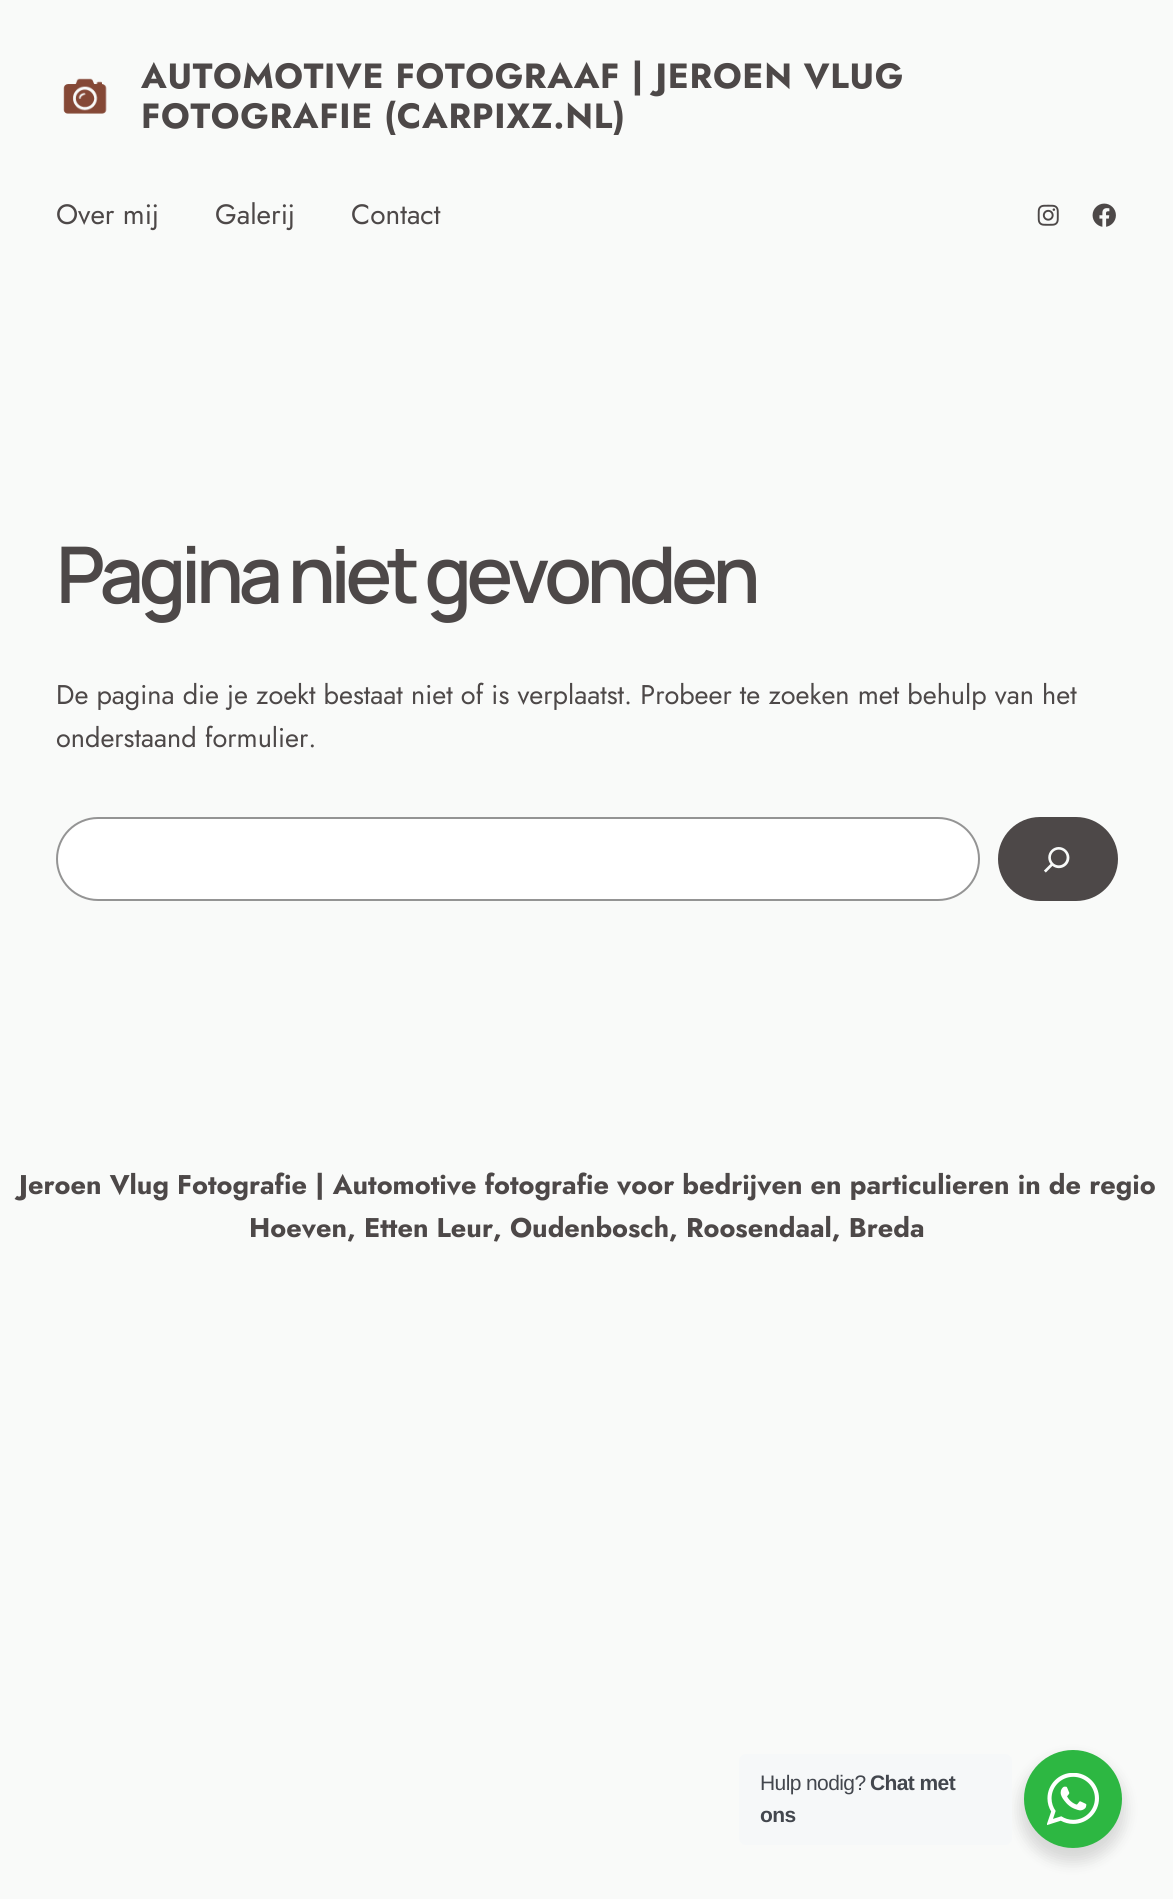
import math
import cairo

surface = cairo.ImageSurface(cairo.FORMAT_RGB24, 1173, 1899)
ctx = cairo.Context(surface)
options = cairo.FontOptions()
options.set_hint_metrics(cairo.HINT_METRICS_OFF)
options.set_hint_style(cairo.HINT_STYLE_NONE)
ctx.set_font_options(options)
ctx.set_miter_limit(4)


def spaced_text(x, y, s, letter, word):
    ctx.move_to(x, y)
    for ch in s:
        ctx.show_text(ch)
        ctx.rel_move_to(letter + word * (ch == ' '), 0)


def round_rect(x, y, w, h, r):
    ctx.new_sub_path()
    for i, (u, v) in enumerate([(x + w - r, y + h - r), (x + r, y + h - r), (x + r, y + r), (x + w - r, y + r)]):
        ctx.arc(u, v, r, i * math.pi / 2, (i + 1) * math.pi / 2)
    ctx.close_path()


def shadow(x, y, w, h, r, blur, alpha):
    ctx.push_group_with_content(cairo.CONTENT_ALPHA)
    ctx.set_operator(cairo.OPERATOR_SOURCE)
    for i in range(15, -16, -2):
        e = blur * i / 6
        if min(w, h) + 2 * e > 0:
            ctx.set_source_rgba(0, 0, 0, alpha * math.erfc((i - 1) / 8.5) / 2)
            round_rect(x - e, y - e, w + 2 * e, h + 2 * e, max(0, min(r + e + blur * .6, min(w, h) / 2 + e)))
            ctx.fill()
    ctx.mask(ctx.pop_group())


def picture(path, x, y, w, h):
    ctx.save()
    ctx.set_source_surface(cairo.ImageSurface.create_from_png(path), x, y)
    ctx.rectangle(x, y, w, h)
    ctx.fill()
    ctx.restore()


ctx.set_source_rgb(0.973, 0.98, 0.976)
ctx.paint()
picture("img1.png", 63, 78, 44, 36)
ctx.select_font_face("Jost", cairo.FONT_SLANT_NORMAL, cairo.FONT_WEIGHT_BOLD)
ctx.set_font_size(35)
ctx.set_source_rgb(0.302, 0.282, 0.282)
spaced_text(141, 88, "AUTOMOTIVE FOTOGRAAF | JEROEN VLUG", 0.7, 0)
spaced_text(141, 128, "FOTOGRAFIE (CARPIXZ.NL)", 0.7, 0)
ctx.select_font_face("Jost")
ctx.set_font_size(28)
ctx.move_to(56, 224)
ctx.show_text("Over mij")
ctx.move_to(215, 224)
ctx.show_text("Galerij")
ctx.move_to(351, 224)
ctx.show_text("Contact")
picture("img2.png", 1037, 204, 22, 22)
picture("img3.png", 1092, 203, 24, 24)
ctx.select_font_face("Manrope SemiBold")
ctx.set_font_size(78.25)
spaced_text(56, 603, "Pagina niet gevonden", -5.5, 0)
ctx.select_font_face("Jost")
ctx.set_font_size(27.05)
ctx.move_to(56, 704)
ctx.show_text("De pagina die je zoekt bestaat niet of is verplaatst. Probeer te zoeken met behulp van het")
ctx.move_to(56, 747)
ctx.show_text("onderstaand formulier.")
ctx.set_source_rgb(1, 1, 1)
round_rect(57, 818, 922, 82, 41)
ctx.fill_preserve()
ctx.set_source_rgb(0.58, 0.58, 0.58)
ctx.stroke()
ctx.set_source_rgb(0.302, 0.282, 0.282)
round_rect(998, 817, 120, 84, 42)
ctx.fill()
picture("img4.png", 1044, 847, 26, 26)
ctx.select_font_face("Jost", cairo.FONT_SLANT_NORMAL, cairo.FONT_WEIGHT_BOLD)
ctx.move_to(19, 1194)
ctx.show_text("Jeroen Vlug Fotografie | Automotive fotografie voor bedrijven en particulieren in de regio")
ctx.move_to(249, 1237)
ctx.show_text("Hoeven, Etten Leur, Oudenbosch, Roosendaal, Breda")
ctx.set_source_rgb(0, 0, 0)
shadow(1020, 1757, 105, 105, 52.5, 7, 0.14)
ctx.set_source_rgb(0.961, 0.969, 0.976)
round_rect(739, 1754, 273, 91, 7)
ctx.fill()
ctx.select_font_face("Liberation Sans")
ctx.set_font_size(21)
ctx.set_source_rgb(0.263, 0.278, 0.306)
spaced_text(760, 1790, "Hulp nodig?", -0.6, 0)
ctx.select_font_face("Liberation Sans", cairo.FONT_SLANT_NORMAL, cairo.FONT_WEIGHT_BOLD)
spaced_text(870, 1790, "Chat met", -0.6, 0)
spaced_text(760, 1822, "ons", -0.6, 0)
ctx.set_source_rgb(0.176, 0.718, 0.259)
ctx.new_path()
ctx.arc(1073, 1799, 49, 0, 2 * math.pi)
ctx.fill()
picture("img5.png", 1047, 1773, 52, 52)
surface.write_to_png("page.png")
